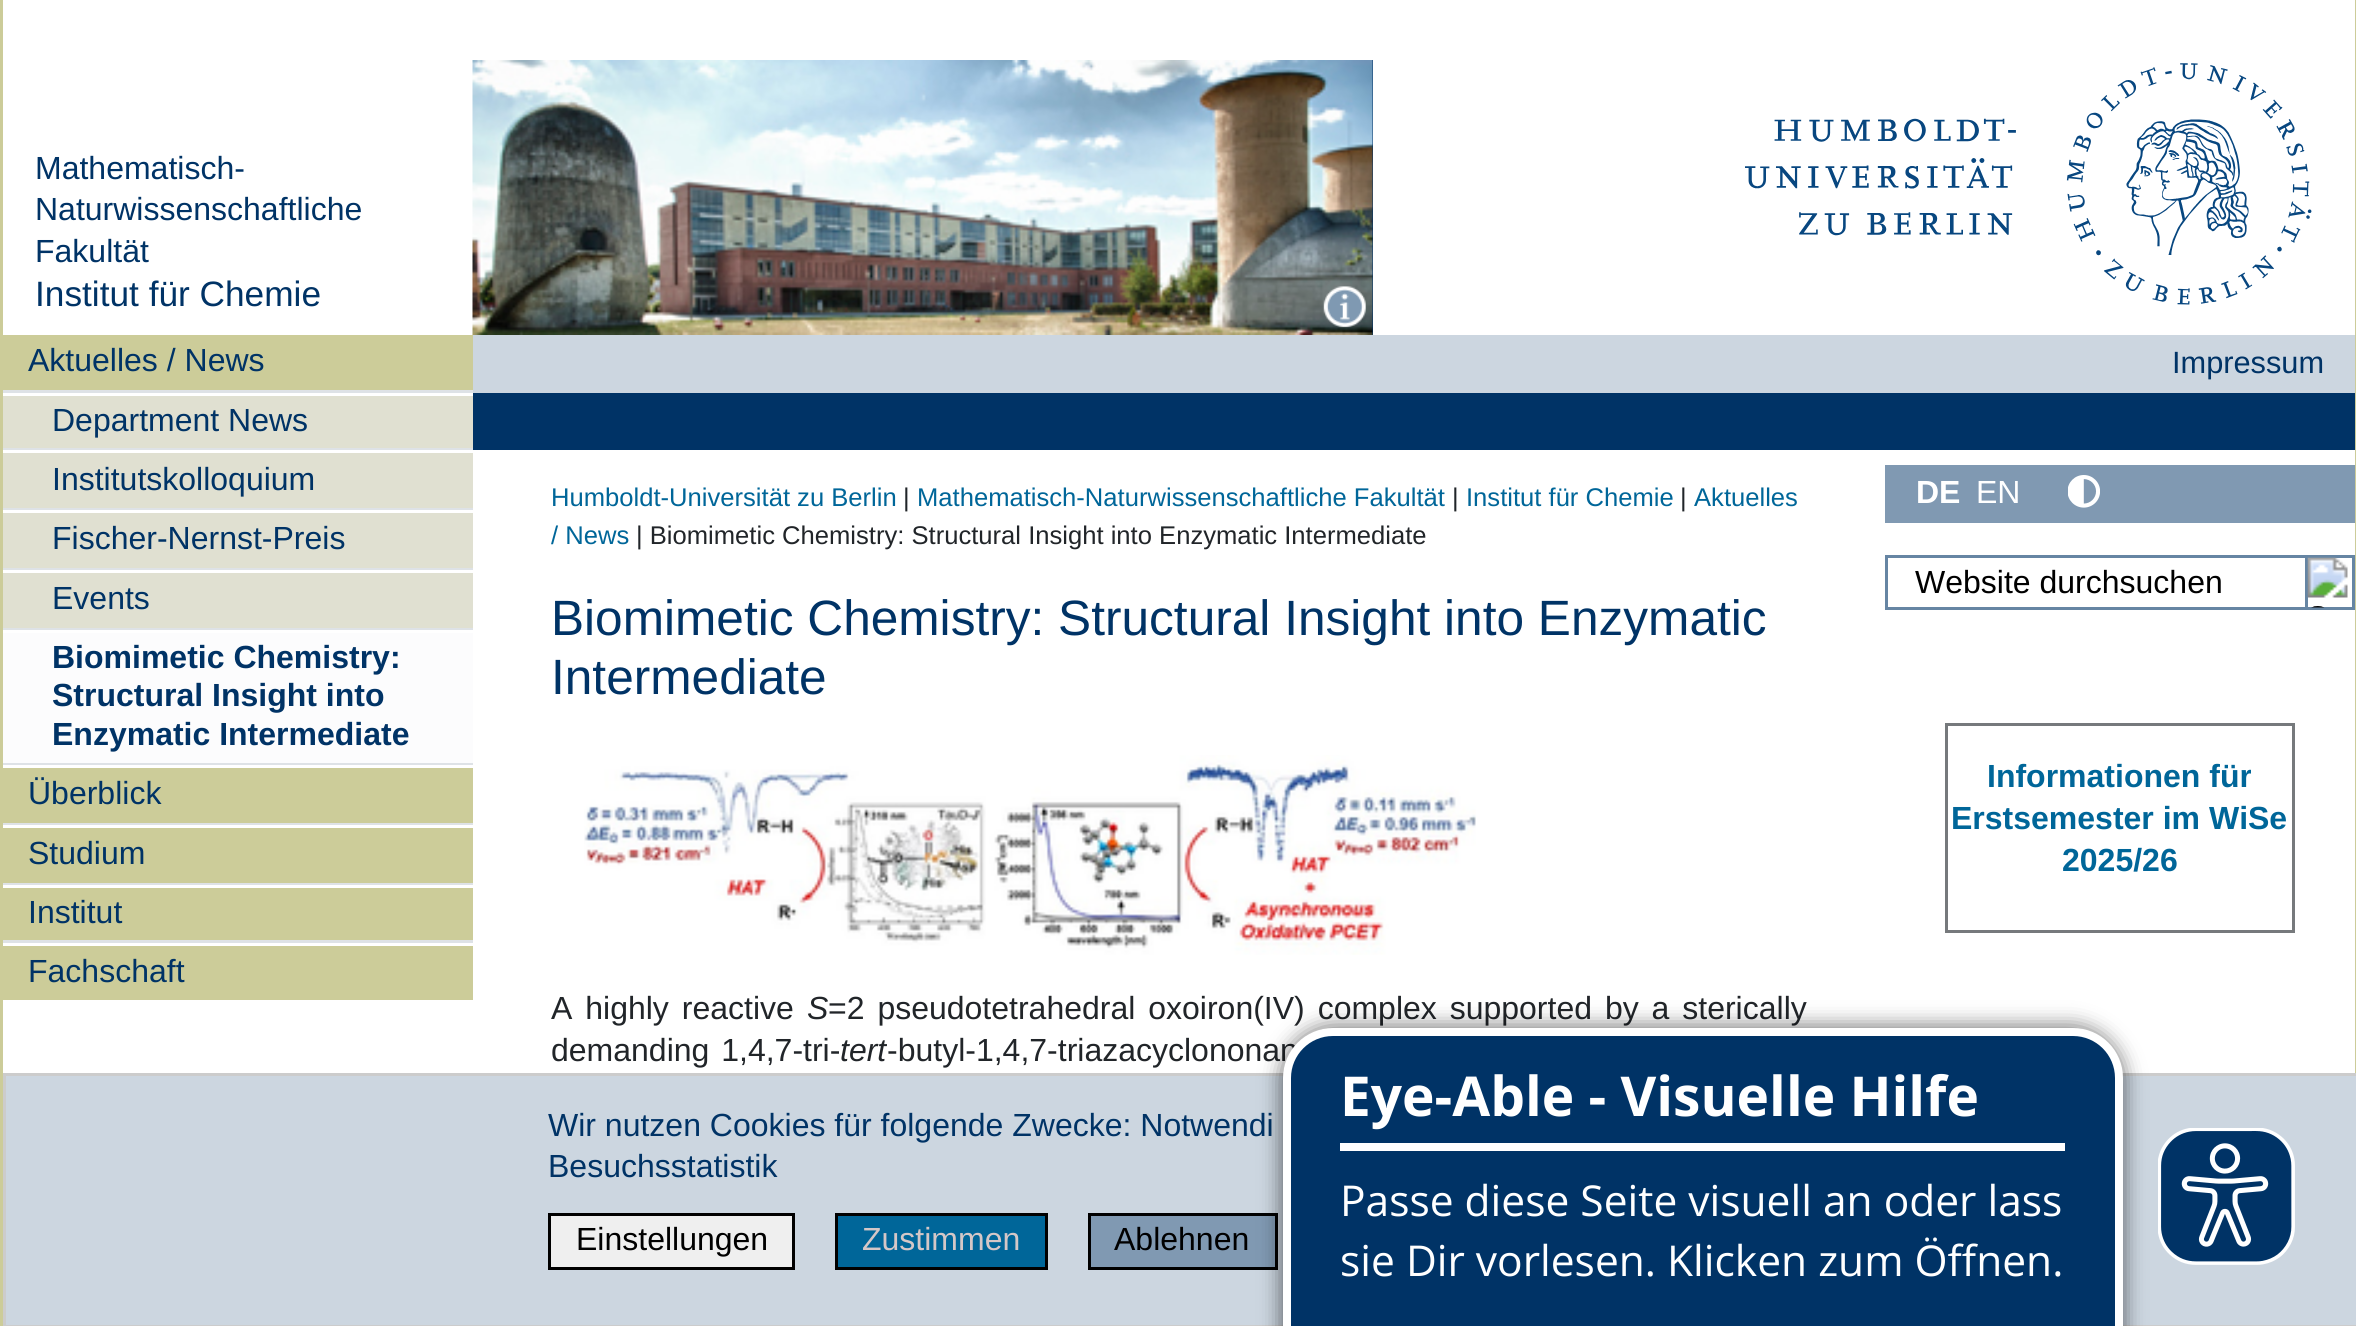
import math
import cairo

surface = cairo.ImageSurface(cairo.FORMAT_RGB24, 2356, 1326)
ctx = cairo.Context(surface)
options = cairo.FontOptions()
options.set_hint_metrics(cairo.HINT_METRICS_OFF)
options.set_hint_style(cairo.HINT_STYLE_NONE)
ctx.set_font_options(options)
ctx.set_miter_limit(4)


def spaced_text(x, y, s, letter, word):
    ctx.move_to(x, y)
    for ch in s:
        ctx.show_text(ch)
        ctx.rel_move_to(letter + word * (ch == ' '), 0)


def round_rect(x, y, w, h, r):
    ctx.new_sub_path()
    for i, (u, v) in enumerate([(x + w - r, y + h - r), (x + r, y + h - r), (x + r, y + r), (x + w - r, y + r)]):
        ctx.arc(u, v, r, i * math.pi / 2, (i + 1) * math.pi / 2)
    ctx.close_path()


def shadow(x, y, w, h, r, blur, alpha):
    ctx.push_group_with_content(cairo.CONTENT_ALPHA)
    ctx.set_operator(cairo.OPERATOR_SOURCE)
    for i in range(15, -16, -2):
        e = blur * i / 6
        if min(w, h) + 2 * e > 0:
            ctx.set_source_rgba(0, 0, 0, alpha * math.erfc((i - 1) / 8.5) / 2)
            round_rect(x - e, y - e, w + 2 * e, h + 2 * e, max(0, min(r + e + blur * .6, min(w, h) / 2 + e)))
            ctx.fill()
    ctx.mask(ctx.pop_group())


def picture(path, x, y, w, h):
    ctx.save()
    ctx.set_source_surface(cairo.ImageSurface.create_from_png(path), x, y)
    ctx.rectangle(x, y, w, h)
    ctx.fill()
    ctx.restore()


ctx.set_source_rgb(1, 1, 1)
ctx.paint()
ctx.set_source_rgb(0, 0.2, 0.4)
ctx.rectangle(1372, 60, 1, 275)
ctx.fill()
picture("img1.png", 472, 60, 901, 275)
picture("img2.png", 1323, 286, 43, 42)
picture("img3.png", 1745, 63, 567, 242)
ctx.set_source_rgb(0.8, 0.8, 0.6)
ctx.rectangle(2355, 0, 1, 1073)
ctx.fill()
ctx.rectangle(0, 0, 3, 1326)
ctx.fill()
ctx.select_font_face("Liberation Sans")
ctx.set_font_size(32)
ctx.set_source_rgb(0, 0.2, 0.4)
ctx.move_to(35, 179)
ctx.show_text("Mathematisch-")
ctx.move_to(35, 220)
ctx.show_text("Naturwissenschaftliche")
ctx.move_to(35, 262)
ctx.show_text("Fakultät")
ctx.set_font_size(35.25)
ctx.move_to(35, 306)
ctx.show_text("Institut für Chemie")
ctx.set_source_rgb(0.8, 0.8, 0.6)
ctx.rectangle(3, 335, 470, 55)
ctx.fill()
ctx.set_font_size(32)
ctx.set_source_rgb(0, 0.2, 0.4)
ctx.move_to(28, 371)
ctx.show_text("Aktuelles / News")
ctx.set_source_rgb(0.878, 0.878, 0.82)
ctx.rectangle(3, 396, 470, 52)
ctx.fill()
ctx.set_source_rgb(0.871, 0.886, 0.902)
ctx.rectangle(3, 390, 470, 3)
ctx.fill()
ctx.set_source_rgb(0, 0.2, 0.4)
ctx.move_to(52, 431)
ctx.show_text("Department News")
ctx.set_source_rgb(0.878, 0.878, 0.82)
ctx.rectangle(3, 453, 470, 55)
ctx.fill()
ctx.set_source_rgb(0.871, 0.886, 0.902)
ctx.rectangle(3, 448, 470, 2)
ctx.fill()
ctx.set_source_rgb(0, 0.2, 0.4)
ctx.move_to(52, 490)
ctx.show_text("Institutskolloquium")
ctx.set_source_rgb(0.878, 0.878, 0.82)
ctx.rectangle(3, 513, 470, 55)
ctx.fill()
ctx.set_source_rgb(0.871, 0.886, 0.902)
ctx.rectangle(3, 508, 470, 2)
ctx.fill()
ctx.set_source_rgb(0, 0.2, 0.4)
ctx.move_to(52, 549)
ctx.show_text("Fischer-Nernst-Preis")
ctx.set_source_rgb(0.878, 0.878, 0.82)
ctx.rectangle(3, 573, 470, 55)
ctx.fill()
ctx.set_source_rgb(0.871, 0.886, 0.902)
ctx.rectangle(3, 568, 470, 2)
ctx.fill()
ctx.set_source_rgb(0, 0.2, 0.4)
ctx.move_to(52, 609)
ctx.show_text("Events")
ctx.set_source_rgb(0.871, 0.886, 0.902)
ctx.rectangle(3, 628, 470, 2)
ctx.fill()
ctx.set_source_rgb(0.988, 0.988, 0.992)
ctx.rectangle(3, 633, 470, 130)
ctx.fill()
ctx.select_font_face("Liberation Sans", cairo.FONT_SLANT_NORMAL, cairo.FONT_WEIGHT_BOLD)
ctx.set_source_rgb(0, 0.2, 0.4)
ctx.move_to(52, 668)
ctx.show_text("Biomimetic Chemistry:")
ctx.move_to(52, 706)
ctx.show_text("Structural Insight into")
ctx.move_to(52, 745)
ctx.show_text("Enzymatic Intermediate")
ctx.set_source_rgb(0.8, 0.8, 0.6)
ctx.rectangle(3, 768, 470, 55)
ctx.fill()
ctx.set_source_rgb(0.871, 0.886, 0.902)
ctx.rectangle(3, 763, 470, 2)
ctx.fill()
ctx.select_font_face("Liberation Sans")
ctx.set_source_rgb(0, 0.2, 0.4)
ctx.move_to(28, 804)
ctx.show_text("Überblick")
ctx.set_source_rgb(0.8, 0.8, 0.6)
ctx.rectangle(3, 828, 470, 55)
ctx.fill()
ctx.set_source_rgb(0.871, 0.886, 0.902)
ctx.rectangle(3, 823, 470, 2)
ctx.fill()
ctx.set_source_rgb(0, 0.2, 0.4)
ctx.move_to(28, 864)
ctx.show_text("Studium")
ctx.set_source_rgb(0.8, 0.8, 0.6)
ctx.rectangle(3, 888, 470, 52)
ctx.fill()
ctx.set_source_rgb(0.871, 0.886, 0.902)
ctx.rectangle(3, 883, 470, 2)
ctx.fill()
ctx.set_source_rgb(0, 0.2, 0.4)
ctx.move_to(28, 923)
ctx.show_text("Institut")
ctx.set_source_rgb(0.8, 0.8, 0.6)
ctx.rectangle(3, 946, 470, 54)
ctx.fill()
ctx.set_source_rgb(0.871, 0.886, 0.902)
ctx.rectangle(3, 940, 470, 3)
ctx.fill()
ctx.set_source_rgb(0, 0.2, 0.4)
ctx.move_to(28, 982)
ctx.show_text("Fachschaft")
ctx.set_source_rgb(0.8, 0.839, 0.878)
ctx.rectangle(473, 335, 1882, 58)
ctx.fill()
ctx.set_font_size(30.75)
ctx.set_source_rgb(0, 0.2, 0.4)
ctx.move_to(2172, 373)
ctx.show_text("Impressum")
ctx.rectangle(473, 393, 1882, 57)
ctx.fill()
ctx.set_font_size(25.6)
ctx.set_source_rgb(0, 0.4, 0.6)
ctx.move_to(551, 506)
ctx.show_text("Humboldt-Universität zu Berlin")
ctx.set_source_rgb(0.129, 0.145, 0.161)
ctx.move_to(903, 506)
ctx.show_text("|")
ctx.set_source_rgb(0, 0.4, 0.6)
ctx.move_to(917, 506)
ctx.show_text("Mathematisch-Naturwissenschaftliche Fakultät")
ctx.set_source_rgb(0.129, 0.145, 0.161)
ctx.move_to(1452, 506)
ctx.show_text("|")
ctx.set_source_rgb(0, 0.4, 0.6)
ctx.move_to(1466, 506)
ctx.show_text("Institut für Chemie")
ctx.set_source_rgb(0.129, 0.145, 0.161)
ctx.move_to(1680, 506)
ctx.show_text("|")
ctx.set_source_rgb(0, 0.4, 0.6)
ctx.move_to(1694, 506)
ctx.show_text("Aktuelles")
ctx.move_to(551, 544)
ctx.show_text("/ News")
ctx.set_source_rgb(0.129, 0.145, 0.161)
ctx.move_to(636, 544)
ctx.show_text("| Biomimetic Chemistry: Structural Insight into Enzymatic Intermediate")
ctx.set_font_size(49.6)
ctx.set_source_rgb(0, 0.2, 0.4)
ctx.move_to(551, 635)
ctx.show_text("Biomimetic Chemistry: Structural Insight into Enzymatic")
ctx.move_to(551, 694)
ctx.show_text("Intermediate")
picture("img4.png", 584, 755, 892, 200)
ctx.set_font_size(32)
ctx.set_source_rgb(0.129, 0.145, 0.161)
spaced_text(551, 1019, "A highly reactive", 0, 4)
ctx.select_font_face("Liberation Sans", cairo.FONT_SLANT_ITALIC)
ctx.move_to(807, 1019)
ctx.show_text("S")
ctx.select_font_face("Liberation Sans")
spaced_text(828, 1019, "=2 pseudotetrahedral oxoiron(IV) complex supported by a sterically", 0, 4)
spaced_text(551, 1061, "demanding 1,4,7-tri-", 0, 3)
ctx.select_font_face("Liberation Sans", cairo.FONT_SLANT_ITALIC)
ctx.move_to(840, 1061)
ctx.show_text("tert")
ctx.select_font_face("Liberation Sans")
spaced_text(887, 1061, "-butyl-1,4,7-triazacyclononan", 0, 3)
ctx.set_source_rgb(0.502, 0.6, 0.698)
ctx.rectangle(1885, 465, 470, 58)
ctx.fill()
ctx.select_font_face("Liberation Sans", cairo.FONT_SLANT_NORMAL, cairo.FONT_WEIGHT_BOLD)
ctx.set_source_rgb(1, 1, 1)
ctx.move_to(1916, 503)
ctx.show_text("DE")
ctx.select_font_face("Liberation Sans")
ctx.move_to(1976, 503)
ctx.show_text("EN")
picture("img5.png", 2068, 475, 32, 33)
ctx.rectangle(1886.5, 556.5, 467, 52)
ctx.set_source_rgb(0.4, 0.522, 0.639)
ctx.set_line_width(3)
ctx.stroke()
ctx.set_source_rgb(0, 0, 0)
ctx.move_to(1915, 593)
ctx.show_text("Website durchsuchen")
ctx.rectangle(2306.5, 556.5, 47, 52)
ctx.set_source_rgb(0.4, 0.522, 0.639)
ctx.stroke()
picture("img6.png", 2307, 557, 41, 51)
ctx.rectangle(1946.5, 724.5, 347, 207)
ctx.set_source_rgb(0.463, 0.475, 0.486)
ctx.stroke()
ctx.select_font_face("Liberation Sans", cairo.FONT_SLANT_NORMAL, cairo.FONT_WEIGHT_BOLD)
ctx.set_source_rgb(0, 0.4, 0.6)
ctx.move_to(1987, 787)
ctx.show_text("Informationen für")
ctx.move_to(1951, 829)
ctx.show_text("Erstsemester im WiSe")
ctx.move_to(2062, 871)
ctx.show_text("2025/26")
ctx.set_source_rgb(0.8, 0.839, 0.878)
ctx.rectangle(4.5, 1074.5, 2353, 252)
ctx.fill_preserve()
ctx.set_source_rgb(0.8, 0.8, 0.8)
ctx.stroke()
ctx.select_font_face("Liberation Sans")
ctx.set_source_rgb(0, 0.2, 0.4)
ctx.move_to(548, 1136)
ctx.show_text("Wir nutzen Cookies für folgende Zwecke: Notwendi")
ctx.move_to(548, 1177)
ctx.show_text("Besuchsstatistik")
ctx.set_source_rgb(0.937, 0.937, 0.937)
ctx.rectangle(549.5, 1214.5, 244, 54)
ctx.fill_preserve()
ctx.set_source_rgb(0, 0, 0)
ctx.stroke()
ctx.move_to(576, 1250)
ctx.show_text("Einstellungen")
ctx.set_source_rgb(0, 0.4, 0.6)
ctx.rectangle(836.5, 1214.5, 210, 54)
ctx.fill_preserve()
ctx.set_source_rgb(0, 0, 0)
ctx.stroke()
ctx.set_source_rgb(0.835, 0.78, 0.78)
ctx.move_to(862, 1250)
ctx.show_text("Zustimmen")
ctx.set_source_rgb(0.502, 0.6, 0.698)
ctx.rectangle(1089.5, 1214.5, 187, 54)
ctx.fill_preserve()
ctx.set_source_rgb(0, 0, 0)
ctx.stroke()
ctx.move_to(1114, 1250)
ctx.show_text("Ablehnen")
ctx.set_source_rgb(0, 0, 0)
shadow(1280, 1025, 845, 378, 53, 10, 0.5)
ctx.set_source_rgb(0, 0.2, 0.4)
round_rect(1287, 1032, 832, 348, 46)
ctx.fill_preserve()
ctx.set_source_rgb(1, 1, 1)
ctx.set_line_width(8)
ctx.stroke()
ctx.rectangle(1340, 1143, 725, 8)
ctx.fill()
ctx.select_font_face("Open Sans", cairo.FONT_SLANT_NORMAL, cairo.FONT_WEIGHT_BOLD)
ctx.set_font_size(55)
ctx.move_to(1340, 1116)
ctx.show_text("Eye-Able - Visuelle Hilfe")
ctx.select_font_face("Open Sans")
ctx.set_font_size(42.5)
ctx.move_to(1340, 1216)
ctx.show_text("Passe diese Seite visuell an oder lass")
ctx.move_to(1340, 1276)
ctx.show_text("sie Dir vorlesen. Klicken zum Öffnen.")
picture("img7.png", 2158, 1128, 137, 137)
surface.write_to_png("page.png")
